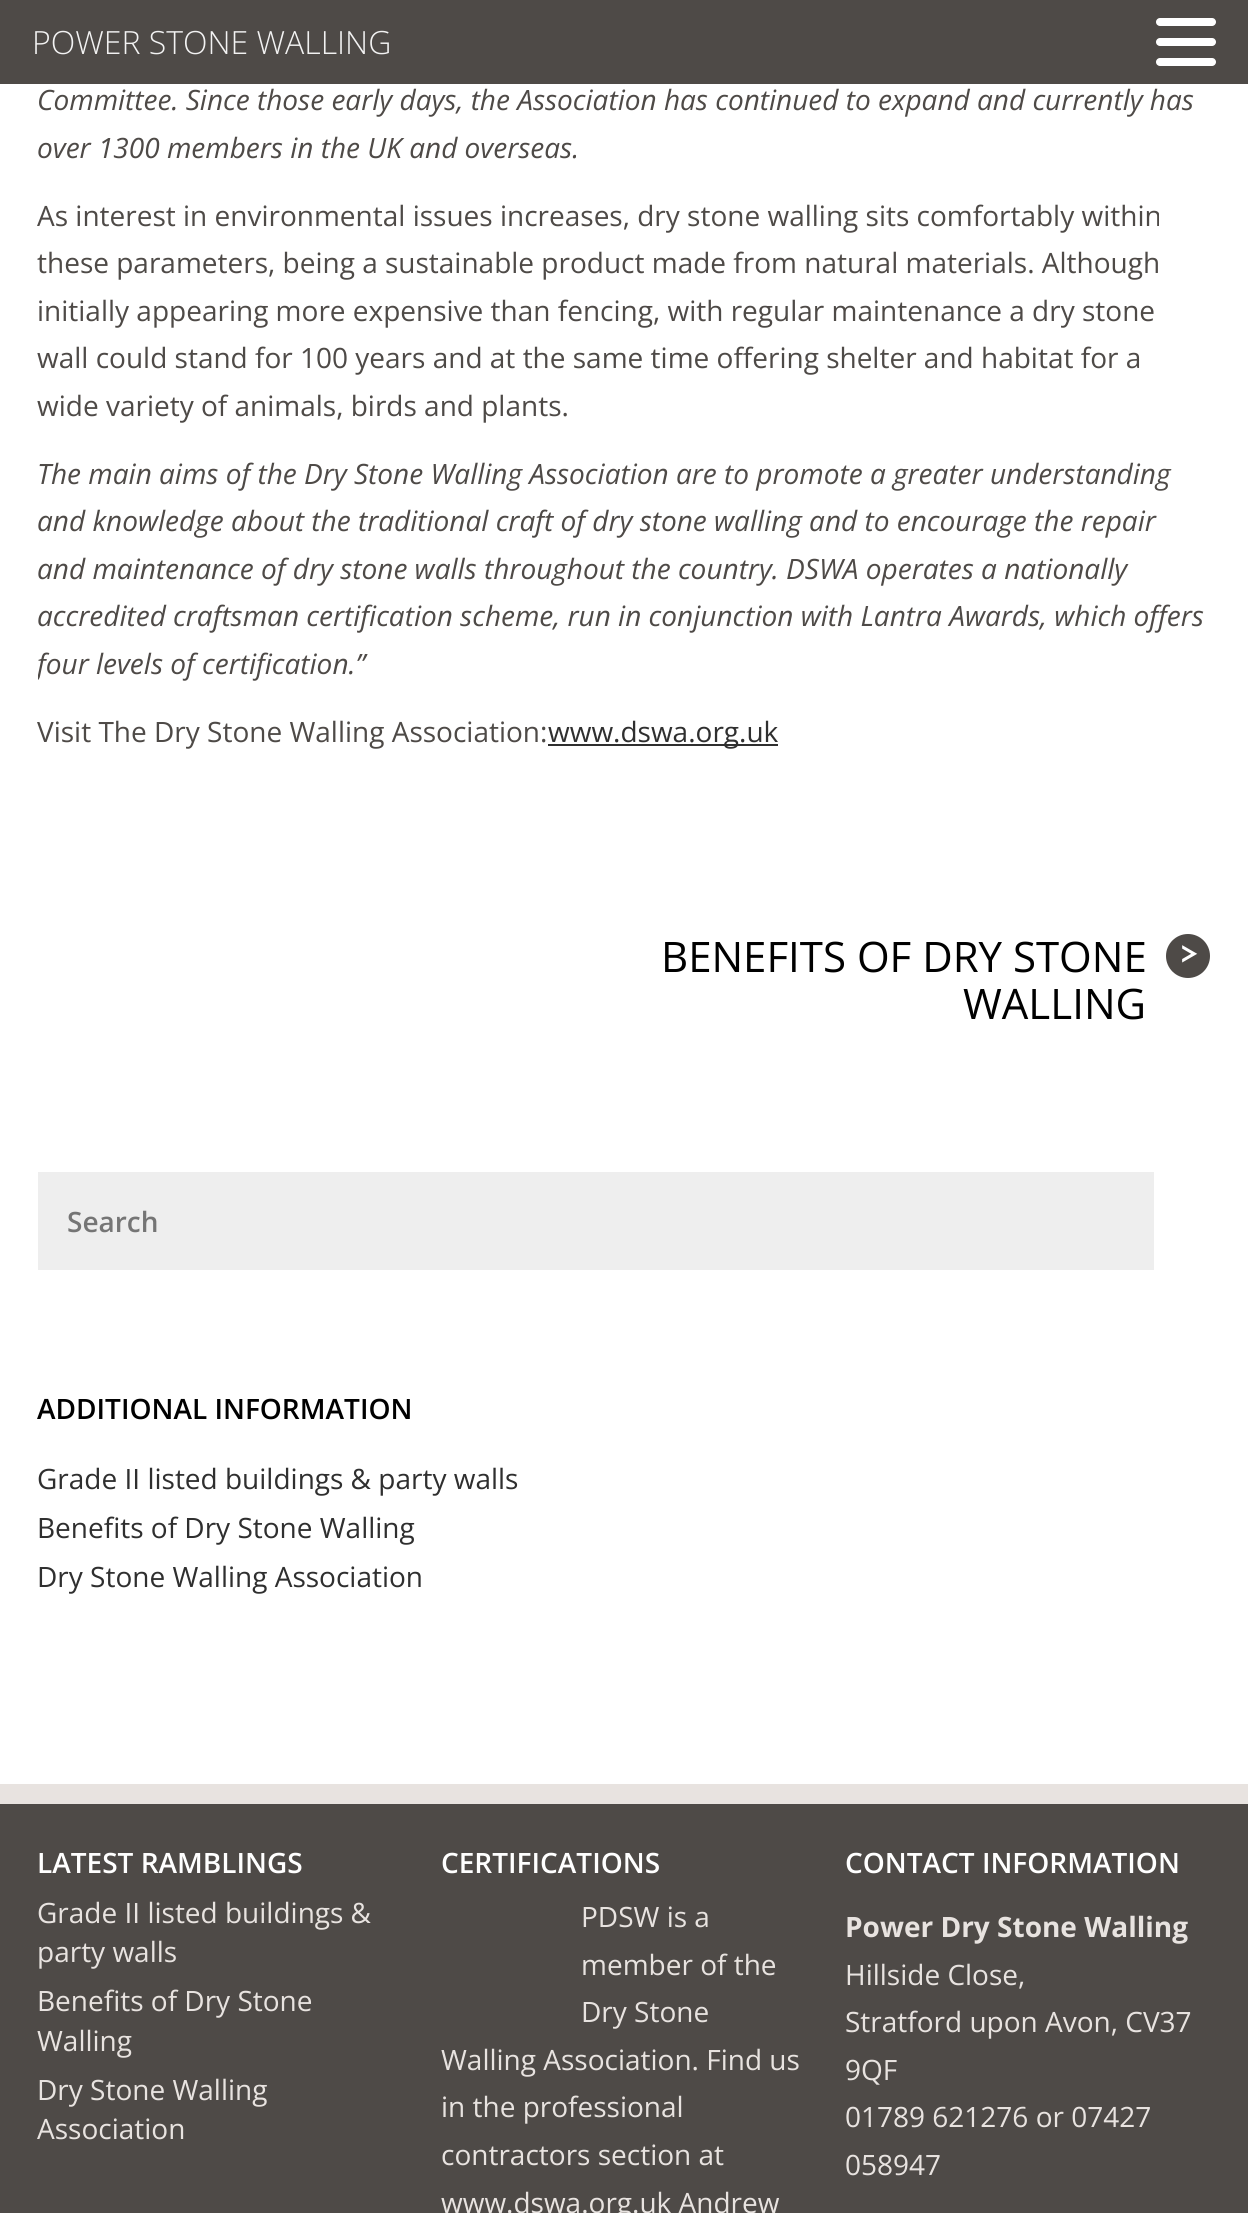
import math
import cairo

surface = cairo.ImageSurface(cairo.FORMAT_RGB24, 1248, 2213)
ctx = cairo.Context(surface)
options = cairo.FontOptions()
options.set_hint_metrics(cairo.HINT_METRICS_OFF)
options.set_hint_style(cairo.HINT_STYLE_NONE)
ctx.set_font_options(options)
ctx.set_miter_limit(4)


def round_rect(x, y, w, h, r):
    ctx.new_sub_path()
    for i, (u, v) in enumerate([(x + w - r, y + h - r), (x + r, y + h - r), (x + r, y + r), (x + w - r, y + r)]):
        ctx.arc(u, v, r, i * math.pi / 2, (i + 1) * math.pi / 2)
    ctx.close_path()


ctx.set_source_rgb(1, 1, 1)
ctx.paint()
ctx.set_source_rgb(0.306, 0.29, 0.278)
ctx.rectangle(0, 0, 1248, 84)
ctx.fill()
ctx.select_font_face("Open Sans Light")
ctx.set_font_size(32)
ctx.set_source_rgb(0.949, 0.949, 0.949)
ctx.move_to(32, 54)
ctx.show_text("POWER STONE WALLING")
ctx.set_source_rgb(1, 1, 1)
round_rect(1156, 18, 60, 8, 4)
ctx.fill()
round_rect(1156, 38, 60, 8, 4)
ctx.fill()
round_rect(1156, 58, 60, 8, 4)
ctx.fill()
ctx.select_font_face("Open Sans", cairo.FONT_SLANT_ITALIC)
ctx.set_font_size(28)
ctx.set_source_rgb(0.306, 0.29, 0.278)
ctx.move_to(37, 110)
ctx.show_text("Committee. Since those early days, the Association has continued to expand and currently has")
ctx.move_to(37, 158)
ctx.show_text("over 1300 members in the UK and overseas.")
ctx.select_font_face("Open Sans")
ctx.move_to(37, 226)
ctx.show_text("As interest in environmental issues increases, dry stone walling sits comfortably within")
ctx.move_to(37, 273)
ctx.show_text("these parameters, being a sustainable product made from natural materials. Although")
ctx.move_to(37, 321)
ctx.show_text("initially appearing more expensive than fencing, with regular maintenance a dry stone")
ctx.move_to(37, 368)
ctx.show_text("wall could stand for 100 years and at the same time offering shelter and habitat for a")
ctx.move_to(37, 416)
ctx.show_text("wide variety of animals, birds and plants.")
ctx.select_font_face("Open Sans", cairo.FONT_SLANT_ITALIC)
ctx.move_to(37, 484)
ctx.show_text("The main aims of the Dry Stone Walling Association are to promote a greater understanding")
ctx.move_to(37, 531)
ctx.show_text("and knowledge about the traditional craft of dry stone walling and to encourage the repair")
ctx.move_to(37, 579)
ctx.show_text("and maintenance of dry stone walls throughout the country. DSWA operates a nationally")
ctx.move_to(37, 626)
ctx.show_text("accredited craftsman certification scheme, run in conjunction with Lantra Awards, which offers")
ctx.save()
ctx.rectangle(38, 0, 1172, 776)
ctx.clip()
ctx.move_to(37, 674)
ctx.show_text("four levels of certification.”")
ctx.restore()
ctx.select_font_face("Open Sans")
ctx.move_to(37, 742)
ctx.show_text("Visit The Dry Stone Walling Association:")
ctx.set_source_rgb(0.184, 0.184, 0.184)
ctx.rectangle(548, 744, 230, 2)
ctx.fill()
ctx.move_to(548, 742)
ctx.show_text("www.dswa.org.uk")
ctx.set_font_size(42)
ctx.set_source_rgb(0, 0, 0)
ctx.move_to(661, 972)
ctx.show_text("BENEFITS OF DRY STONE")
ctx.set_source_rgb(0.306, 0.29, 0.278)
ctx.new_path()
ctx.arc(1188, 956, 22, 0, 2 * math.pi)
ctx.fill()
ctx.select_font_face("Josefin Sans Thin")
ctx.set_font_size(34)
ctx.set_source_rgb(1, 1, 1)
ctx.move_to(1179, 962)
ctx.show_text(">")
ctx.select_font_face("Open Sans")
ctx.set_font_size(42)
ctx.set_source_rgb(0, 0, 0)
ctx.move_to(963, 1019)
ctx.show_text("WALLING")
ctx.set_source_rgb(0.933, 0.933, 0.933)
ctx.rectangle(38, 1172, 1116, 98)
ctx.fill()
ctx.select_font_face("Open Sans SemiBold")
ctx.set_font_size(28)
ctx.set_source_rgb(0.459, 0.459, 0.459)
ctx.move_to(67, 1232)
ctx.show_text("Search")
ctx.set_source_rgb(0, 0, 0)
ctx.move_to(37, 1419)
ctx.show_text("ADDITIONAL INFORMATION")
ctx.select_font_face("Open Sans")
ctx.set_source_rgb(0.184, 0.184, 0.184)
ctx.move_to(37, 1489)
ctx.show_text("Grade II listed buildings & party walls")
ctx.move_to(37, 1538)
ctx.show_text("Benefits of Dry Stone Walling")
ctx.move_to(37, 1587)
ctx.show_text("Dry Stone Walling Association")
ctx.set_source_rgb(0.306, 0.29, 0.278)
ctx.rectangle(0, 1804, 1248, 409)
ctx.fill()
ctx.set_source_rgb(0.91, 0.89, 0.878)
ctx.rectangle(0, 1784, 1248, 20)
ctx.fill()
ctx.select_font_face("Open Sans SemiBold")
ctx.set_source_rgb(1, 1, 1)
ctx.move_to(37, 1873)
ctx.show_text("LATEST RAMBLINGS")
ctx.select_font_face("Open Sans")
ctx.set_source_rgb(0.91, 0.89, 0.878)
ctx.move_to(37, 1923)
ctx.show_text("Grade II listed buildings &")
ctx.move_to(37, 1962)
ctx.show_text("party walls")
ctx.move_to(37, 2011)
ctx.show_text("Benefits of Dry Stone")
ctx.move_to(37, 2051)
ctx.show_text("Walling")
ctx.move_to(37, 2100)
ctx.show_text("Dry Stone Walling")
ctx.move_to(37, 2139)
ctx.show_text("Association")
ctx.select_font_face("Open Sans SemiBold")
ctx.set_source_rgb(1, 1, 1)
ctx.move_to(441, 1873)
ctx.show_text("CERTIFICATIONS")
ctx.select_font_face("Open Sans")
ctx.set_source_rgb(0.91, 0.89, 0.878)
ctx.move_to(581, 1927)
ctx.show_text("PDSW is a")
ctx.move_to(581, 1975)
ctx.show_text("member of the")
ctx.move_to(581, 2022)
ctx.show_text("Dry Stone")
ctx.move_to(441, 2070)
ctx.show_text("Walling Association. Find us")
ctx.move_to(441, 2117)
ctx.show_text("in the professional")
ctx.move_to(441, 2165)
ctx.show_text("contractors section at")
ctx.move_to(441, 2213)
ctx.show_text("www.dswa.org.uk Andrew")
ctx.select_font_face("Open Sans SemiBold")
ctx.set_source_rgb(1, 1, 1)
ctx.move_to(845, 1873)
ctx.show_text("CONTACT INFORMATION")
ctx.select_font_face("Open Sans", cairo.FONT_SLANT_NORMAL, cairo.FONT_WEIGHT_BOLD)
ctx.set_source_rgb(0.91, 0.89, 0.878)
ctx.move_to(845, 1937)
ctx.show_text("Power Dry Stone Walling")
ctx.select_font_face("Open Sans")
ctx.move_to(845, 1985)
ctx.show_text("Hillside Close,")
ctx.move_to(845, 2032)
ctx.show_text("Stratford upon Avon, CV37")
ctx.move_to(845, 2080)
ctx.show_text("9QF")
ctx.move_to(845, 2127)
ctx.show_text("01789 621276 or 07427")
ctx.move_to(845, 2175)
ctx.show_text("058947")
surface.write_to_png("page.png")
